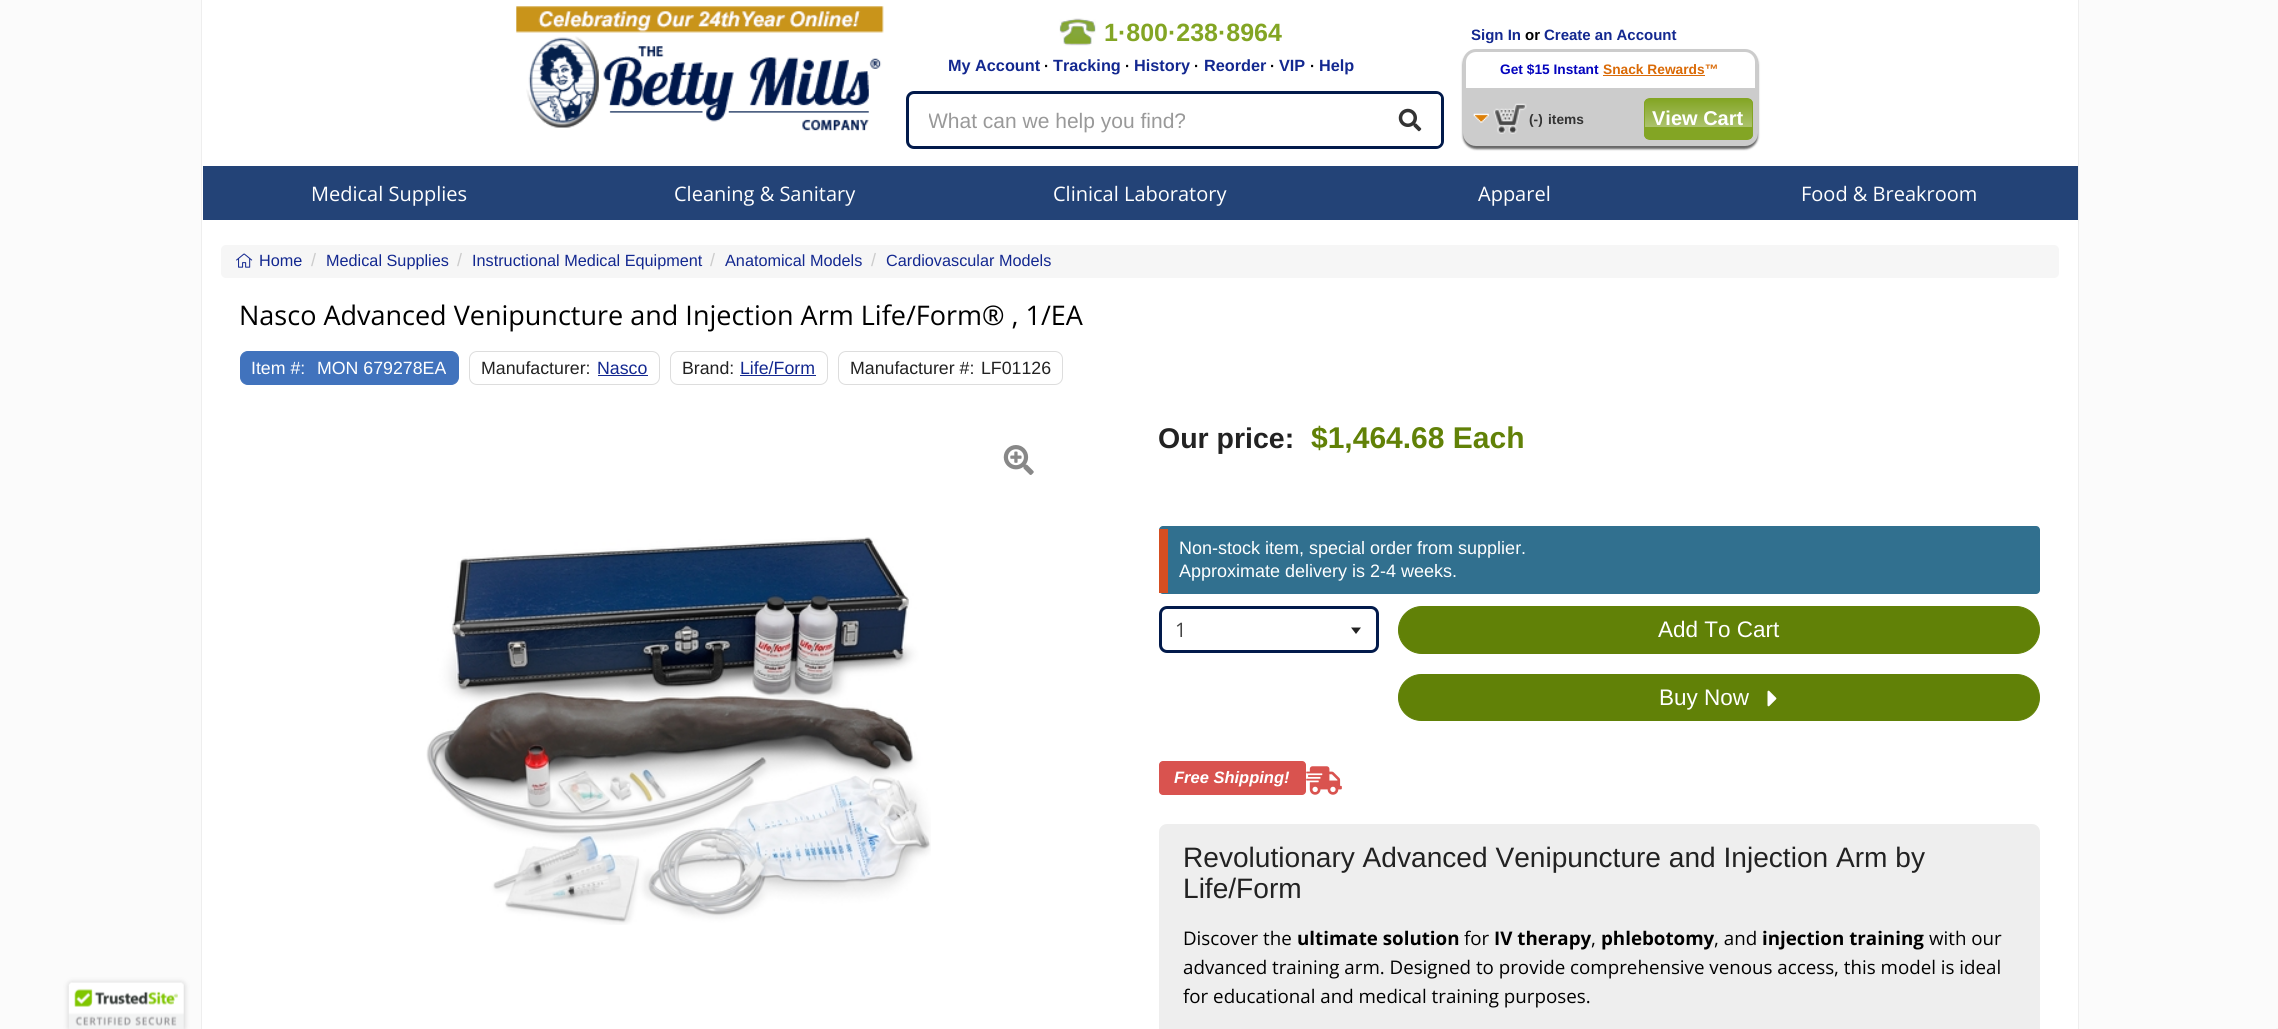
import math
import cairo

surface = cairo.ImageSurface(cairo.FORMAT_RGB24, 2278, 1029)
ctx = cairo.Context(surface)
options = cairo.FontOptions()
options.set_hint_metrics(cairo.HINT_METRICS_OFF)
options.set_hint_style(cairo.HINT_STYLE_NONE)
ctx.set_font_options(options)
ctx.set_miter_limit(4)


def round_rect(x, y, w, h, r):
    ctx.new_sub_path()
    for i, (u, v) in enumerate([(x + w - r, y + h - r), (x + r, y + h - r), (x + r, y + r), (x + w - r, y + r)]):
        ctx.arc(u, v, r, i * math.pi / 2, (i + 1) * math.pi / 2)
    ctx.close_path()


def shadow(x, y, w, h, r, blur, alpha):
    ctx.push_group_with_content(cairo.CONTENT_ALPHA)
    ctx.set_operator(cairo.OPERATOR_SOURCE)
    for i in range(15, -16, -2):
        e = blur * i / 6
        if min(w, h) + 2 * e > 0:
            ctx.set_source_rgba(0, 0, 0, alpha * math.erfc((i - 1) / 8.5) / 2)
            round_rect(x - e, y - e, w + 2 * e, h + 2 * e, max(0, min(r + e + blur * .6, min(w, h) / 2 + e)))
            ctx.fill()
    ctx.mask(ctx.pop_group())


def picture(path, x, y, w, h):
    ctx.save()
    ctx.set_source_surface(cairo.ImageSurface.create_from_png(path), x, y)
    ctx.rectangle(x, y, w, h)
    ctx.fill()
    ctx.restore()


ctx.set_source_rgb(0.984, 0.984, 0.984)
ctx.paint()
ctx.set_source_rgb(0, 0, 0)
shadow(69, 983, 115, 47, 2.5, 3, 0.2)
picture("img1.png", 68, 982, 116, 47)
ctx.set_source_rgb(1, 1, 1)
ctx.rectangle(202, 0, 1876, 1029)
ctx.fill()
ctx.set_source_rgb(0.933, 0.933, 0.933)
ctx.rectangle(2078, 0, 1, 1029)
ctx.fill()
ctx.rectangle(201, 0, 1, 1029)
ctx.fill()
picture("img2.png", 516, 6, 368, 125)
picture("img3.png", 1059, 18, 37, 28)
ctx.select_font_face("Liberation Sans", cairo.FONT_SLANT_NORMAL, cairo.FONT_WEIGHT_BOLD)
ctx.set_font_size(25)
ctx.set_source_rgb(0.514, 0.647, 0.141)
ctx.move_to(1104, 41)
ctx.show_text("1·800·238·8964")
ctx.set_font_size(16.25)
ctx.set_source_rgb(0.078, 0.157, 0.565)
ctx.move_to(948, 71)
ctx.show_text("My Account")
ctx.set_font_size(15)
ctx.set_source_rgb(0, 0, 0)
ctx.move_to(1044, 71)
ctx.show_text("·")
ctx.set_font_size(16.25)
ctx.set_source_rgb(0.078, 0.157, 0.565)
ctx.move_to(1053, 71)
ctx.show_text("Tracking")
ctx.set_font_size(15)
ctx.set_source_rgb(0, 0, 0)
ctx.move_to(1125, 71)
ctx.show_text("·")
ctx.set_font_size(16.25)
ctx.set_source_rgb(0.078, 0.157, 0.565)
ctx.move_to(1134, 71)
ctx.show_text("History")
ctx.set_font_size(15)
ctx.set_source_rgb(0, 0, 0)
ctx.move_to(1194, 71)
ctx.show_text("·")
ctx.set_font_size(16.25)
ctx.set_source_rgb(0.078, 0.157, 0.565)
ctx.move_to(1204, 71)
ctx.show_text("Reorder")
ctx.set_font_size(15)
ctx.set_source_rgb(0, 0, 0)
ctx.move_to(1270, 71)
ctx.show_text("·")
ctx.set_font_size(16.25)
ctx.set_source_rgb(0.078, 0.157, 0.565)
ctx.move_to(1279, 71)
ctx.show_text("VIP")
ctx.set_font_size(15)
ctx.set_source_rgb(0, 0, 0)
ctx.move_to(1310, 71)
ctx.show_text("·")
ctx.set_font_size(16.25)
ctx.set_source_rgb(0.078, 0.157, 0.565)
ctx.move_to(1319, 71)
ctx.show_text("Help")
round_rect(907.5, 92.5, 535, 55, 6.5)
ctx.set_source_rgb(0.008, 0.102, 0.294)
ctx.set_line_width(3)
ctx.stroke()
ctx.save()
ctx.rectangle(929, 109, 492, 25)
ctx.clip()
ctx.select_font_face("Liberation Sans")
ctx.set_font_size(21)
ctx.set_source_rgb(0.6, 0.6, 0.6)
ctx.move_to(928, 128)
ctx.show_text("What can we help you find?")
ctx.restore()
ctx.set_source_rgb(1, 1, 1)
ctx.new_path()
ctx.move_to(1379, 94)
ctx.line_to(1436, 94)
ctx.curve_to(1439, 94, 1441, 96, 1441, 99)
ctx.line_to(1441, 141)
ctx.curve_to(1441, 144, 1439, 146, 1436, 146)
ctx.line_to(1379, 146)
ctx.close_path()
ctx.fill()
picture("img4.png", 1398, 108, 24, 24)
ctx.set_font_size(15)
ctx.set_source_rgb(0.078, 0.157, 0.565)
ctx.move_to(1471, 40)
ctx.show_text("Sign In")
ctx.set_source_rgb(0, 0, 0)
ctx.move_to(1525, 40)
ctx.show_text("or")
ctx.set_source_rgb(0.078, 0.157, 0.565)
ctx.move_to(1544, 40)
ctx.show_text("Create an Account")
ctx.set_source_rgb(0.4, 0.4, 0.4)
shadow(1463, 51, 295, 98, 13, 1, 1)
ctx.set_source_rgb(1, 1, 1)
round_rect(1464.5, 50.5, 292, 94, 11.5)
ctx.fill_preserve()
ctx.set_source_rgb(0.8, 0.8, 0.8)
ctx.stroke()
ctx.set_font_size(13.75)
ctx.set_source_rgb(0.016, 0.016, 0.745)
ctx.move_to(1500, 74)
ctx.show_text("Get $15 Instant")
ctx.set_source_rgb(0.855, 0.416, 0.024)
ctx.move_to(1603, 74)
ctx.show_text("Snack Rewards™")
ctx.rectangle(1603, 75, 102, 1)
ctx.fill()
ctx.set_source_rgb(0.8, 0.8, 0.8)
ctx.new_path()
ctx.move_to(1465, 88)
ctx.line_to(1755, 88)
ctx.line_to(1755, 134)
ctx.curve_to(1755, 139.5, 1750.5, 144, 1745, 144)
ctx.line_to(1475, 144)
ctx.curve_to(1469.5, 144, 1465, 139.5, 1465, 134)
ctx.close_path()
ctx.fill()
picture("img5.png", 1473, 103, 54, 31)
ctx.set_source_rgb(0.2, 0.2, 0.2)
ctx.move_to(1529, 124)
ctx.show_text("(-)")
ctx.move_to(1548, 124)
ctx.show_text("items")
ctx.save()
round_rect(1644, 98, 109, 42, 6)
ctx.clip()
gradient = cairo.LinearGradient(1698, 99, 1698, 139)
gradient.add_color_stop_rgba(0, 0.514, 0.647, 0.141, 1)
gradient.add_color_stop_rgba(0.69, 0.671, 0.761, 0.42, 1)
gradient.add_color_stop_rgba(0.69, 0.514, 0.647, 0.141, 1)
gradient.add_color_stop_rgba(1, 0.514, 0.647, 0.141, 1)
ctx.set_source(gradient)
ctx.rectangle(1644, 99, 109, 40)
ctx.fill()
ctx.restore()
round_rect(1644.5, 98.5, 108, 41, 5.5)
ctx.set_source_rgb(0.514, 0.647, 0.141)
ctx.set_line_width(1)
ctx.stroke()
ctx.set_font_size(20)
ctx.set_source_rgb(1, 1, 1)
ctx.move_to(1652, 125)
ctx.show_text("View Cart")
ctx.set_source_rgb(0.137, 0.263, 0.467)
ctx.rectangle(203, 166, 1875, 54)
ctx.fill()
ctx.select_font_face("Open Sans")
ctx.set_source_rgb(1, 1, 1)
ctx.move_to(311, 201)
ctx.show_text("Medical Supplies")
ctx.move_to(674, 201)
ctx.show_text("Cleaning & Sanitary")
ctx.move_to(1053, 201)
ctx.show_text("Clinical Laboratory")
ctx.move_to(1478, 201)
ctx.show_text("Apparel")
ctx.move_to(1801, 201)
ctx.show_text("Food & Breakroom")
ctx.set_source_rgb(0.961, 0.961, 0.961)
round_rect(221, 245, 1838, 33, 5)
ctx.fill()
picture("img6.png", 236, 253, 17, 15)
ctx.select_font_face("Liberation Sans")
ctx.set_font_size(16.25)
ctx.set_source_rgb(0.078, 0.157, 0.565)
ctx.move_to(259, 266)
ctx.show_text("Home")
ctx.set_font_size(18)
ctx.set_source_rgb(0.8, 0.8, 0.8)
ctx.move_to(311, 266)
ctx.show_text("/")
ctx.set_font_size(16.25)
ctx.set_source_rgb(0.078, 0.157, 0.565)
ctx.move_to(326, 266)
ctx.show_text("Medical Supplies")
ctx.set_font_size(18)
ctx.set_source_rgb(0.8, 0.8, 0.8)
ctx.move_to(457, 266)
ctx.show_text("/")
ctx.set_font_size(16.25)
ctx.set_source_rgb(0.078, 0.157, 0.565)
ctx.move_to(472, 266)
ctx.show_text("Instructional Medical Equipment")
ctx.set_font_size(18)
ctx.set_source_rgb(0.8, 0.8, 0.8)
ctx.move_to(710, 266)
ctx.show_text("/")
ctx.set_font_size(16.25)
ctx.set_source_rgb(0.078, 0.157, 0.565)
ctx.move_to(725, 266)
ctx.show_text("Anatomical Models")
ctx.set_font_size(18)
ctx.set_source_rgb(0.8, 0.8, 0.8)
ctx.move_to(871, 266)
ctx.show_text("/")
ctx.set_font_size(16.25)
ctx.set_source_rgb(0.078, 0.157, 0.565)
ctx.move_to(886, 266)
ctx.show_text("Cardiovascular Models")
ctx.select_font_face("Open Sans")
ctx.set_font_size(27)
ctx.set_source_rgb(0, 0, 0)
ctx.move_to(239, 325)
ctx.show_text("Nasco Advanced Venipuncture and Injection Arm Life/Form® , 1/EA")
ctx.set_source_rgb(0.255, 0.451, 0.741)
round_rect(240.5, 351.5, 218, 33, 7.5)
ctx.fill_preserve()
ctx.stroke()
ctx.select_font_face("Liberation Sans")
ctx.set_font_size(17.75)
ctx.set_source_rgb(1, 1, 1)
ctx.move_to(251, 374)
ctx.show_text("Item #:")
ctx.move_to(317, 374)
ctx.show_text("MON 679278EA")
round_rect(469.5, 351.5, 190, 33, 7.5)
ctx.set_source_rgb(0.867, 0.867, 0.867)
ctx.stroke()
ctx.set_source_rgb(0.133, 0.133, 0.133)
ctx.move_to(481, 374)
ctx.show_text("Manufacturer:")
ctx.set_source_rgb(0.078, 0.157, 0.565)
ctx.move_to(597, 374)
ctx.show_text("Nasco")
ctx.rectangle(598, 375, 50, 1)
ctx.fill()
round_rect(670.5, 351.5, 157, 33, 7.5)
ctx.set_source_rgb(0.867, 0.867, 0.867)
ctx.stroke()
ctx.set_source_rgb(0.133, 0.133, 0.133)
ctx.move_to(682, 374)
ctx.show_text("Brand:")
ctx.set_source_rgb(0.078, 0.157, 0.565)
ctx.move_to(740, 374)
ctx.show_text("Life/Form")
ctx.rectangle(740, 375, 76, 1)
ctx.fill()
round_rect(838.5, 351.5, 224, 33, 7.5)
ctx.set_source_rgb(0.867, 0.867, 0.867)
ctx.stroke()
ctx.set_source_rgb(0.133, 0.133, 0.133)
ctx.move_to(850, 374)
ctx.show_text("Manufacturer #:")
ctx.move_to(981, 374)
ctx.show_text("LF01126")
picture("img7.png", 1003, 445, 31, 30)
picture("img8.png", 426, 537, 505, 388)
ctx.select_font_face("Liberation Sans", cairo.FONT_SLANT_NORMAL, cairo.FONT_WEIGHT_BOLD)
ctx.set_font_size(28.5)
ctx.move_to(1158, 448)
ctx.show_text("Our price:")
ctx.set_font_size(30)
ctx.set_source_rgb(0.38, 0.506, 0.031)
ctx.move_to(1311, 448)
ctx.show_text("$1,464.68 Each")
ctx.set_source_rgb(0.192, 0.439, 0.561)
round_rect(1159, 526, 881, 68, 4)
ctx.fill()
ctx.set_source_rgb(0.835, 0.306, 0.129)
ctx.rectangle(1159, 529, 9, 64)
ctx.fill()
ctx.select_font_face("Liberation Sans")
ctx.set_font_size(18)
ctx.set_source_rgb(1, 1, 1)
ctx.move_to(1179, 554)
ctx.show_text("Non-stock item, special order from supplier.")
ctx.move_to(1179, 577)
ctx.show_text("Approximate delivery is 2-4 weeks.")
round_rect(1160.5, 607.5, 217, 44, 6.5)
ctx.set_source_rgb(0.008, 0.102, 0.294)
ctx.set_line_width(3)
ctx.stroke()
ctx.select_font_face("Open Sans")
ctx.set_font_size(20)
ctx.set_source_rgb(0.267, 0.267, 0.267)
ctx.move_to(1175, 637)
ctx.show_text("1")
ctx.set_source_rgb(0.133, 0.133, 0.133)
ctx.new_path()
ctx.move_to(1351, 627.5)
ctx.line_to(1361, 627.5)
ctx.line_to(1356, 634)
ctx.close_path()
ctx.fill()
ctx.set_source_rgb(0.38, 0.506, 0.031)
round_rect(1398.5, 606.5, 641, 47, 23.5)
ctx.fill_preserve()
ctx.set_line_width(1)
ctx.stroke()
ctx.select_font_face("Liberation Sans")
ctx.set_font_size(22.5)
ctx.set_source_rgb(1, 1, 1)
ctx.move_to(1658, 637)
ctx.show_text("Add To Cart")
ctx.set_source_rgb(0.38, 0.506, 0.031)
round_rect(1398.5, 674.5, 641, 46, 23)
ctx.fill_preserve()
ctx.stroke()
ctx.set_source_rgb(1, 1, 1)
ctx.move_to(1659, 705)
ctx.show_text("Buy Now")
picture("img9.png", 1767, 690, 10, 17)
ctx.set_source_rgb(0.851, 0.325, 0.31)
round_rect(1159, 761, 147, 34, 4)
ctx.fill()
ctx.select_font_face("Liberation Sans", cairo.FONT_SLANT_ITALIC, cairo.FONT_WEIGHT_BOLD)
ctx.set_font_size(16.5)
ctx.set_source_rgb(1, 1, 1)
ctx.move_to(1174, 783)
ctx.show_text("Free Shipping!")
picture("img10.png", 1306, 766, 36, 29)
ctx.set_source_rgb(0.933, 0.933, 0.933)
round_rect(1159, 824, 881, 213, 8)
ctx.fill()
ctx.select_font_face("Liberation Sans")
ctx.set_font_size(28.1)
ctx.set_source_rgb(0.133, 0.133, 0.133)
ctx.move_to(1183, 867)
ctx.show_text("Revolutionary Advanced Venipuncture and Injection Arm by")
ctx.move_to(1183, 898)
ctx.show_text("Life/Form")
ctx.select_font_face("Open Sans")
ctx.set_font_size(18.75)
ctx.set_source_rgb(0, 0, 0)
ctx.move_to(1183, 945)
ctx.show_text("Discover the")
ctx.select_font_face("Open Sans", cairo.FONT_SLANT_NORMAL, cairo.FONT_WEIGHT_BOLD)
ctx.move_to(1297, 945)
ctx.show_text("ultimate solution")
ctx.select_font_face("Open Sans")
ctx.move_to(1464, 945)
ctx.show_text("for")
ctx.select_font_face("Open Sans", cairo.FONT_SLANT_NORMAL, cairo.FONT_WEIGHT_BOLD)
ctx.move_to(1494, 945)
ctx.show_text("IV therapy")
ctx.select_font_face("Open Sans")
ctx.move_to(1591, 945)
ctx.show_text(",")
ctx.select_font_face("Open Sans", cairo.FONT_SLANT_NORMAL, cairo.FONT_WEIGHT_BOLD)
ctx.move_to(1601, 945)
ctx.show_text("phlebotomy")
ctx.select_font_face("Open Sans")
ctx.move_to(1714, 945)
ctx.show_text(", and")
ctx.select_font_face("Open Sans", cairo.FONT_SLANT_NORMAL, cairo.FONT_WEIGHT_BOLD)
ctx.move_to(1762, 945)
ctx.show_text("injection training")
ctx.select_font_face("Open Sans")
ctx.move_to(1929, 945)
ctx.show_text("with our")
ctx.move_to(1183, 974)
ctx.show_text("advanced training arm. Designed to provide comprehensive venous access, this model is ideal")
ctx.move_to(1183, 1003)
ctx.show_text("for educational and medical training purposes.")
ctx.set_source_rgb(0.961, 0.961, 0.961)
ctx.rectangle(2276, 1028, 2, 1)
ctx.fill()
surface.write_to_png("page.png")
